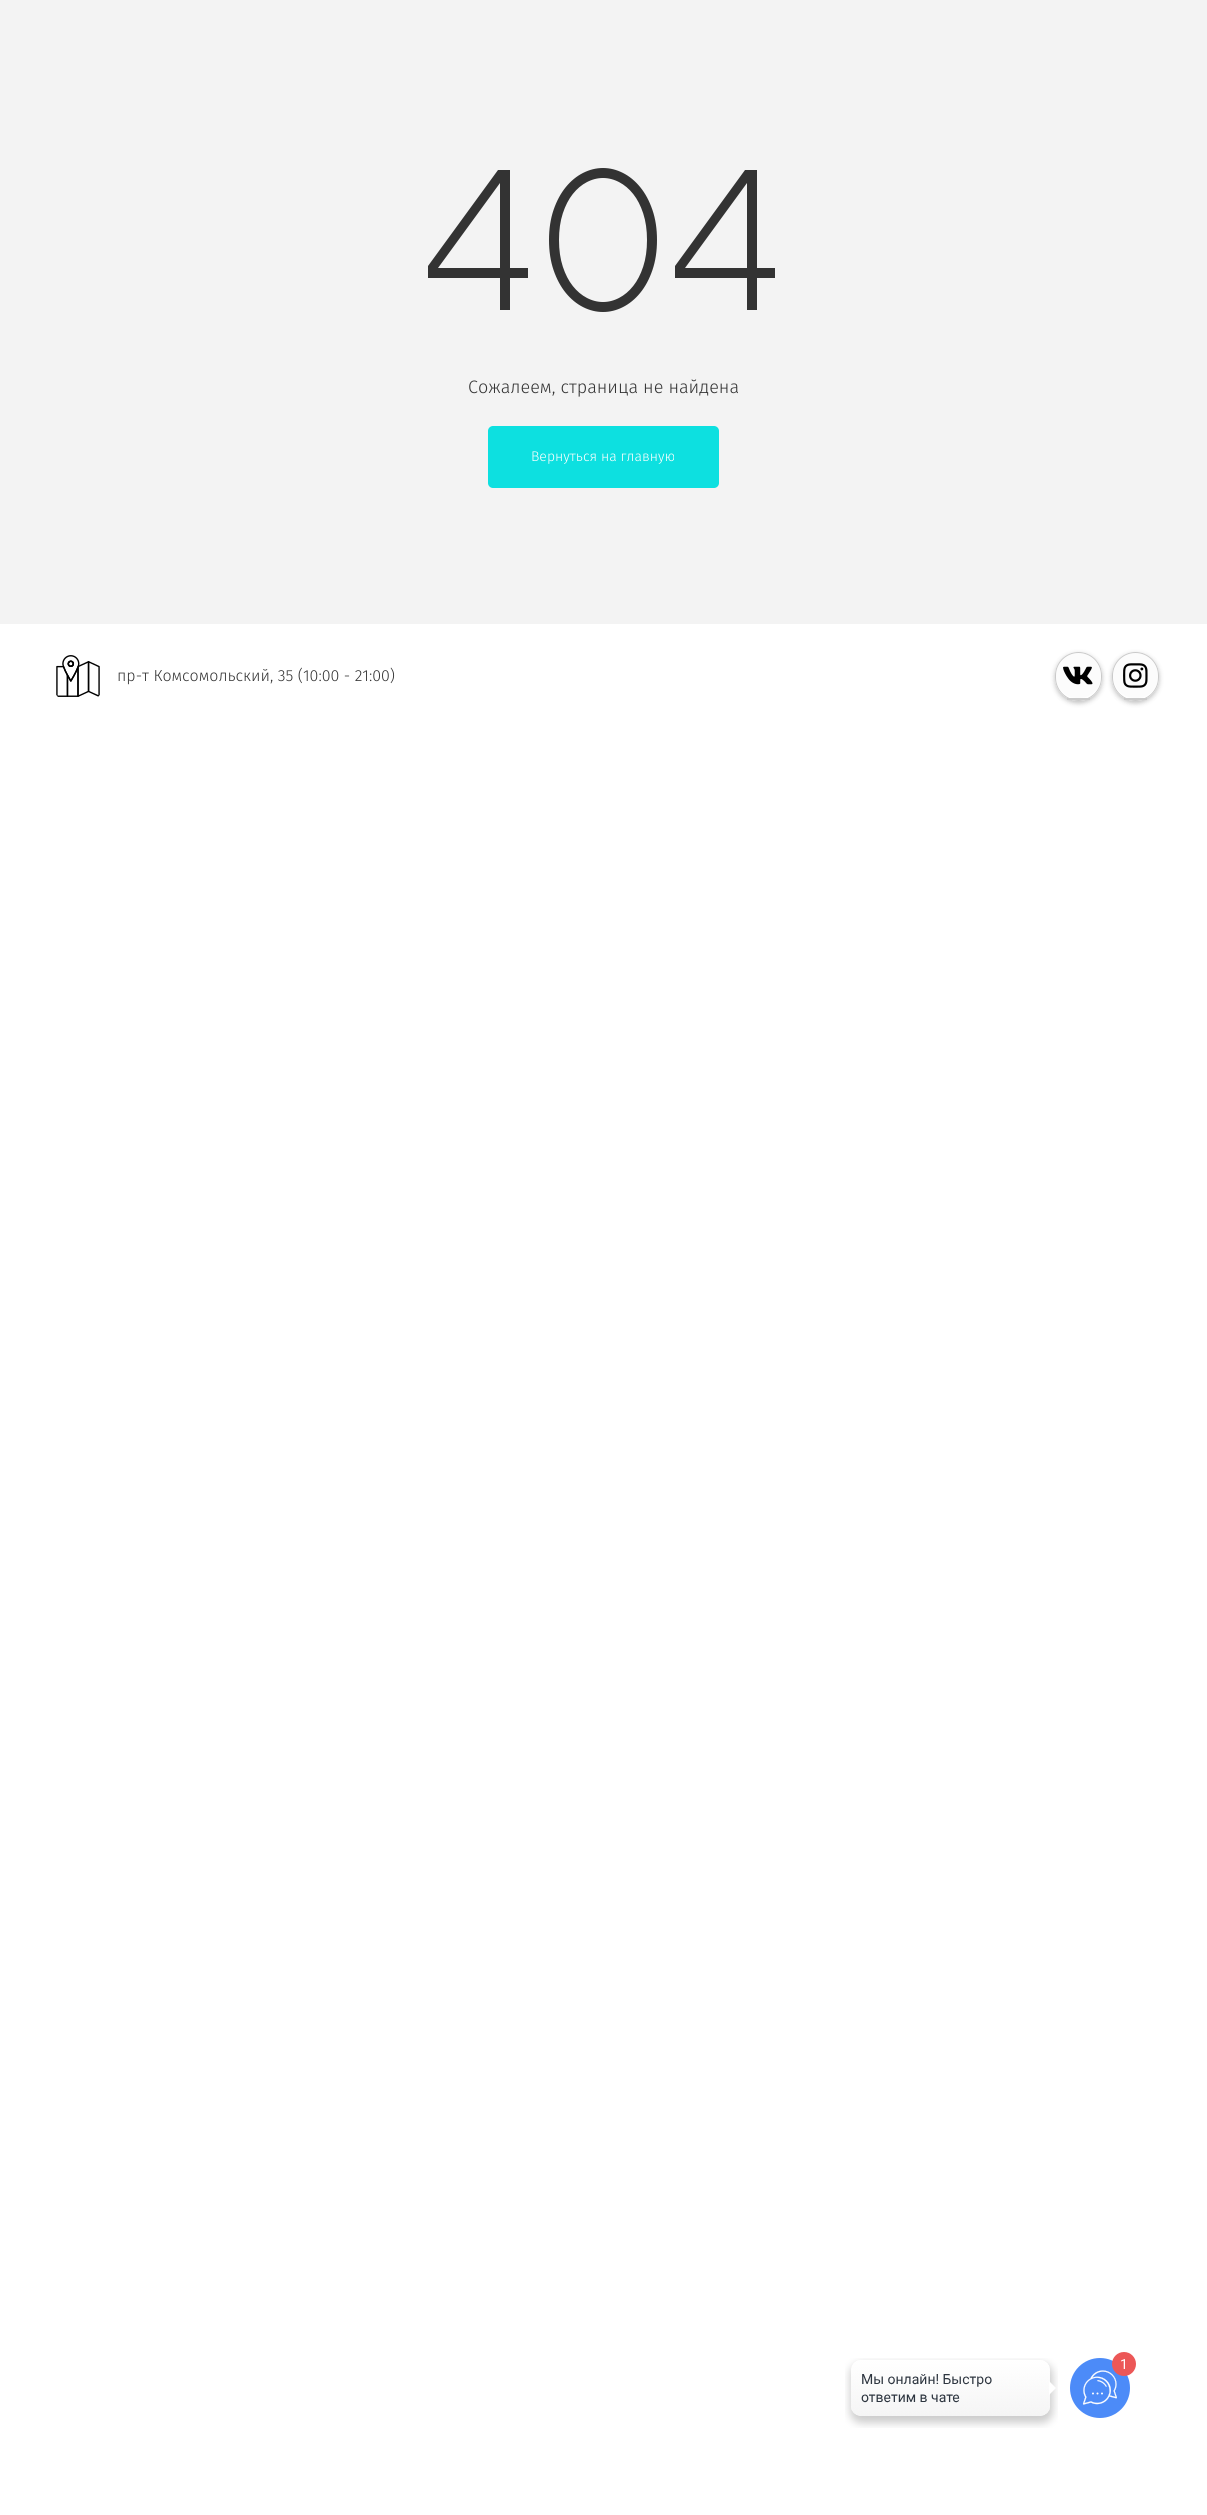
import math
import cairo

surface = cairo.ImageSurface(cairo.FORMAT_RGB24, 1207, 2515)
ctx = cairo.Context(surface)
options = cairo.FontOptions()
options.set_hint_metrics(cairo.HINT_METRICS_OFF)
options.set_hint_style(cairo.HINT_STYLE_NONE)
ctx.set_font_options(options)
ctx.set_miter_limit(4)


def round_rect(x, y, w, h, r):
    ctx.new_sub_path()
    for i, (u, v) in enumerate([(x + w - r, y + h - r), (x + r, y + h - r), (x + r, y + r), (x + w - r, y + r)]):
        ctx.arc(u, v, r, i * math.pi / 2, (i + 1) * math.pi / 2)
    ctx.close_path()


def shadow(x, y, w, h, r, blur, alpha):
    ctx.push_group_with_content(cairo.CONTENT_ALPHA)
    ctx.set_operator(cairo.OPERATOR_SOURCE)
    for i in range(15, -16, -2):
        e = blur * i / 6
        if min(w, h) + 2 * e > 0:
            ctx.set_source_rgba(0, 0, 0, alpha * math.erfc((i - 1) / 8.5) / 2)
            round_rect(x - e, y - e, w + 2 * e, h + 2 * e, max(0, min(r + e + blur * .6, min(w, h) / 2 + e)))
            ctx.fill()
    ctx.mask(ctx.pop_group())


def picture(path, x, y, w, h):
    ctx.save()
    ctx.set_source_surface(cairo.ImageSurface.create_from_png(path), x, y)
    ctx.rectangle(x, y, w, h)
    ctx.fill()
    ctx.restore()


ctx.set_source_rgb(1, 1, 1)
ctx.paint()
ctx.set_source_rgb(0.953, 0.953, 0.953)
ctx.rectangle(0, 0, 1207, 624)
ctx.fill()
ctx.select_font_face("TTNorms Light")
ctx.set_font_size(200)
ctx.set_source_rgb(0.2, 0.2, 0.2)
ctx.move_to(423, 310)
ctx.show_text("404")
ctx.select_font_face("Fira Sans Light")
ctx.set_font_size(18)
ctx.move_to(468, 393)
ctx.show_text("Сожалеем, страница не найдена")
ctx.set_source_rgb(0.051, 0.878, 0.878)
round_rect(488, 426, 231, 62, 5)
ctx.fill()
ctx.set_font_size(14)
ctx.set_source_rgb(1, 1, 1)
ctx.move_to(531, 461)
ctx.show_text("Вернуться на главную")
picture("img1.png", 56, 655, 44, 42)
ctx.set_font_size(16)
ctx.set_source_rgb(0.2, 0.2, 0.2)
ctx.move_to(117, 681)
ctx.show_text("пр-т Комсомольский, 35 (10:00 - 21:00)")
ctx.save()
ctx.set_fill_rule(cairo.FILL_RULE_EVEN_ODD)
ctx.new_path()
ctx.move_to(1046, 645)
ctx.line_to(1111, 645)
ctx.line_to(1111, 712)
ctx.line_to(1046, 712)
ctx.close_path()
ctx.move_to(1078.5, 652)
ctx.curve_to(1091.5, 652, 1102, 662.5, 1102, 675.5)
ctx.line_to(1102, 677.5)
ctx.curve_to(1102, 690.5, 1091.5, 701, 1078.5, 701)
ctx.curve_to(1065.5, 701, 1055, 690.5, 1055, 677.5)
ctx.line_to(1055, 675.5)
ctx.curve_to(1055, 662.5, 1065.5, 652, 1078.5, 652)
ctx.close_path()
ctx.clip()
ctx.set_source_rgb(0, 0, 0)
shadow(1055, 654, 47, 49, 23.5, 2.5, 0.25)
ctx.restore()
ctx.set_source_rgb(0.988, 0.988, 0.988)
ctx.new_path()
ctx.move_to(1078, 653)
ctx.curve_to(1108, 653, 1109, 698, 1078, 698)
ctx.curve_to(1048, 698, 1049, 653, 1078, 653)
ctx.close_path()
ctx.fill()
round_rect(1055.5, 652.5, 46, 48, 23)
ctx.set_source_rgb(0.792, 0.792, 0.792)
ctx.set_line_width(1)
ctx.stroke()
ctx.rectangle(1067, 698, 23, 2)
ctx.fill()
picture("img2.png", 1063, 666, 30, 19)
ctx.save()
ctx.set_fill_rule(cairo.FILL_RULE_EVEN_ODD)
ctx.new_path()
ctx.move_to(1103, 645)
ctx.line_to(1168, 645)
ctx.line_to(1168, 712)
ctx.line_to(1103, 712)
ctx.close_path()
ctx.move_to(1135.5, 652)
ctx.curve_to(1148.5, 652, 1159, 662.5, 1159, 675.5)
ctx.line_to(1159, 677.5)
ctx.curve_to(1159, 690.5, 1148.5, 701, 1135.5, 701)
ctx.curve_to(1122.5, 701, 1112, 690.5, 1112, 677.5)
ctx.line_to(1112, 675.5)
ctx.curve_to(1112, 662.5, 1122.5, 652, 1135.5, 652)
ctx.close_path()
ctx.clip()
ctx.set_source_rgb(0, 0, 0)
shadow(1112, 654, 47, 49, 23.5, 2.5, 0.25)
ctx.restore()
ctx.set_source_rgb(0.988, 0.988, 0.988)
ctx.new_path()
ctx.move_to(1136, 653)
ctx.curve_to(1165, 653, 1166, 698, 1136, 698)
ctx.curve_to(1105, 698, 1106, 653, 1136, 653)
ctx.close_path()
ctx.fill()
round_rect(1112.5, 652.5, 46, 48, 23)
ctx.set_source_rgb(0.792, 0.792, 0.792)
ctx.stroke()
ctx.rectangle(1124, 698, 23, 2)
ctx.fill()
picture("img3.png", 1123, 663, 25, 25)
picture("img4.png", 845, 2358, 213, 70)
ctx.set_source_rgb(0.298, 0.545, 0.969)
ctx.arc(1100, 2388, 30, 0, 2 * math.pi)
ctx.fill()
picture("img5.png", 1082, 2370, 35, 35)
ctx.set_source_rgb(0.922, 0.341, 0.341)
ctx.arc(1124, 2364, 12, 0, 2 * math.pi)
ctx.fill()
ctx.select_font_face("Roboto")
ctx.set_font_size(14)
ctx.set_source_rgb(1, 1, 1)
ctx.move_to(1120, 2369)
ctx.show_text("1")
surface.write_to_png("page.png")
